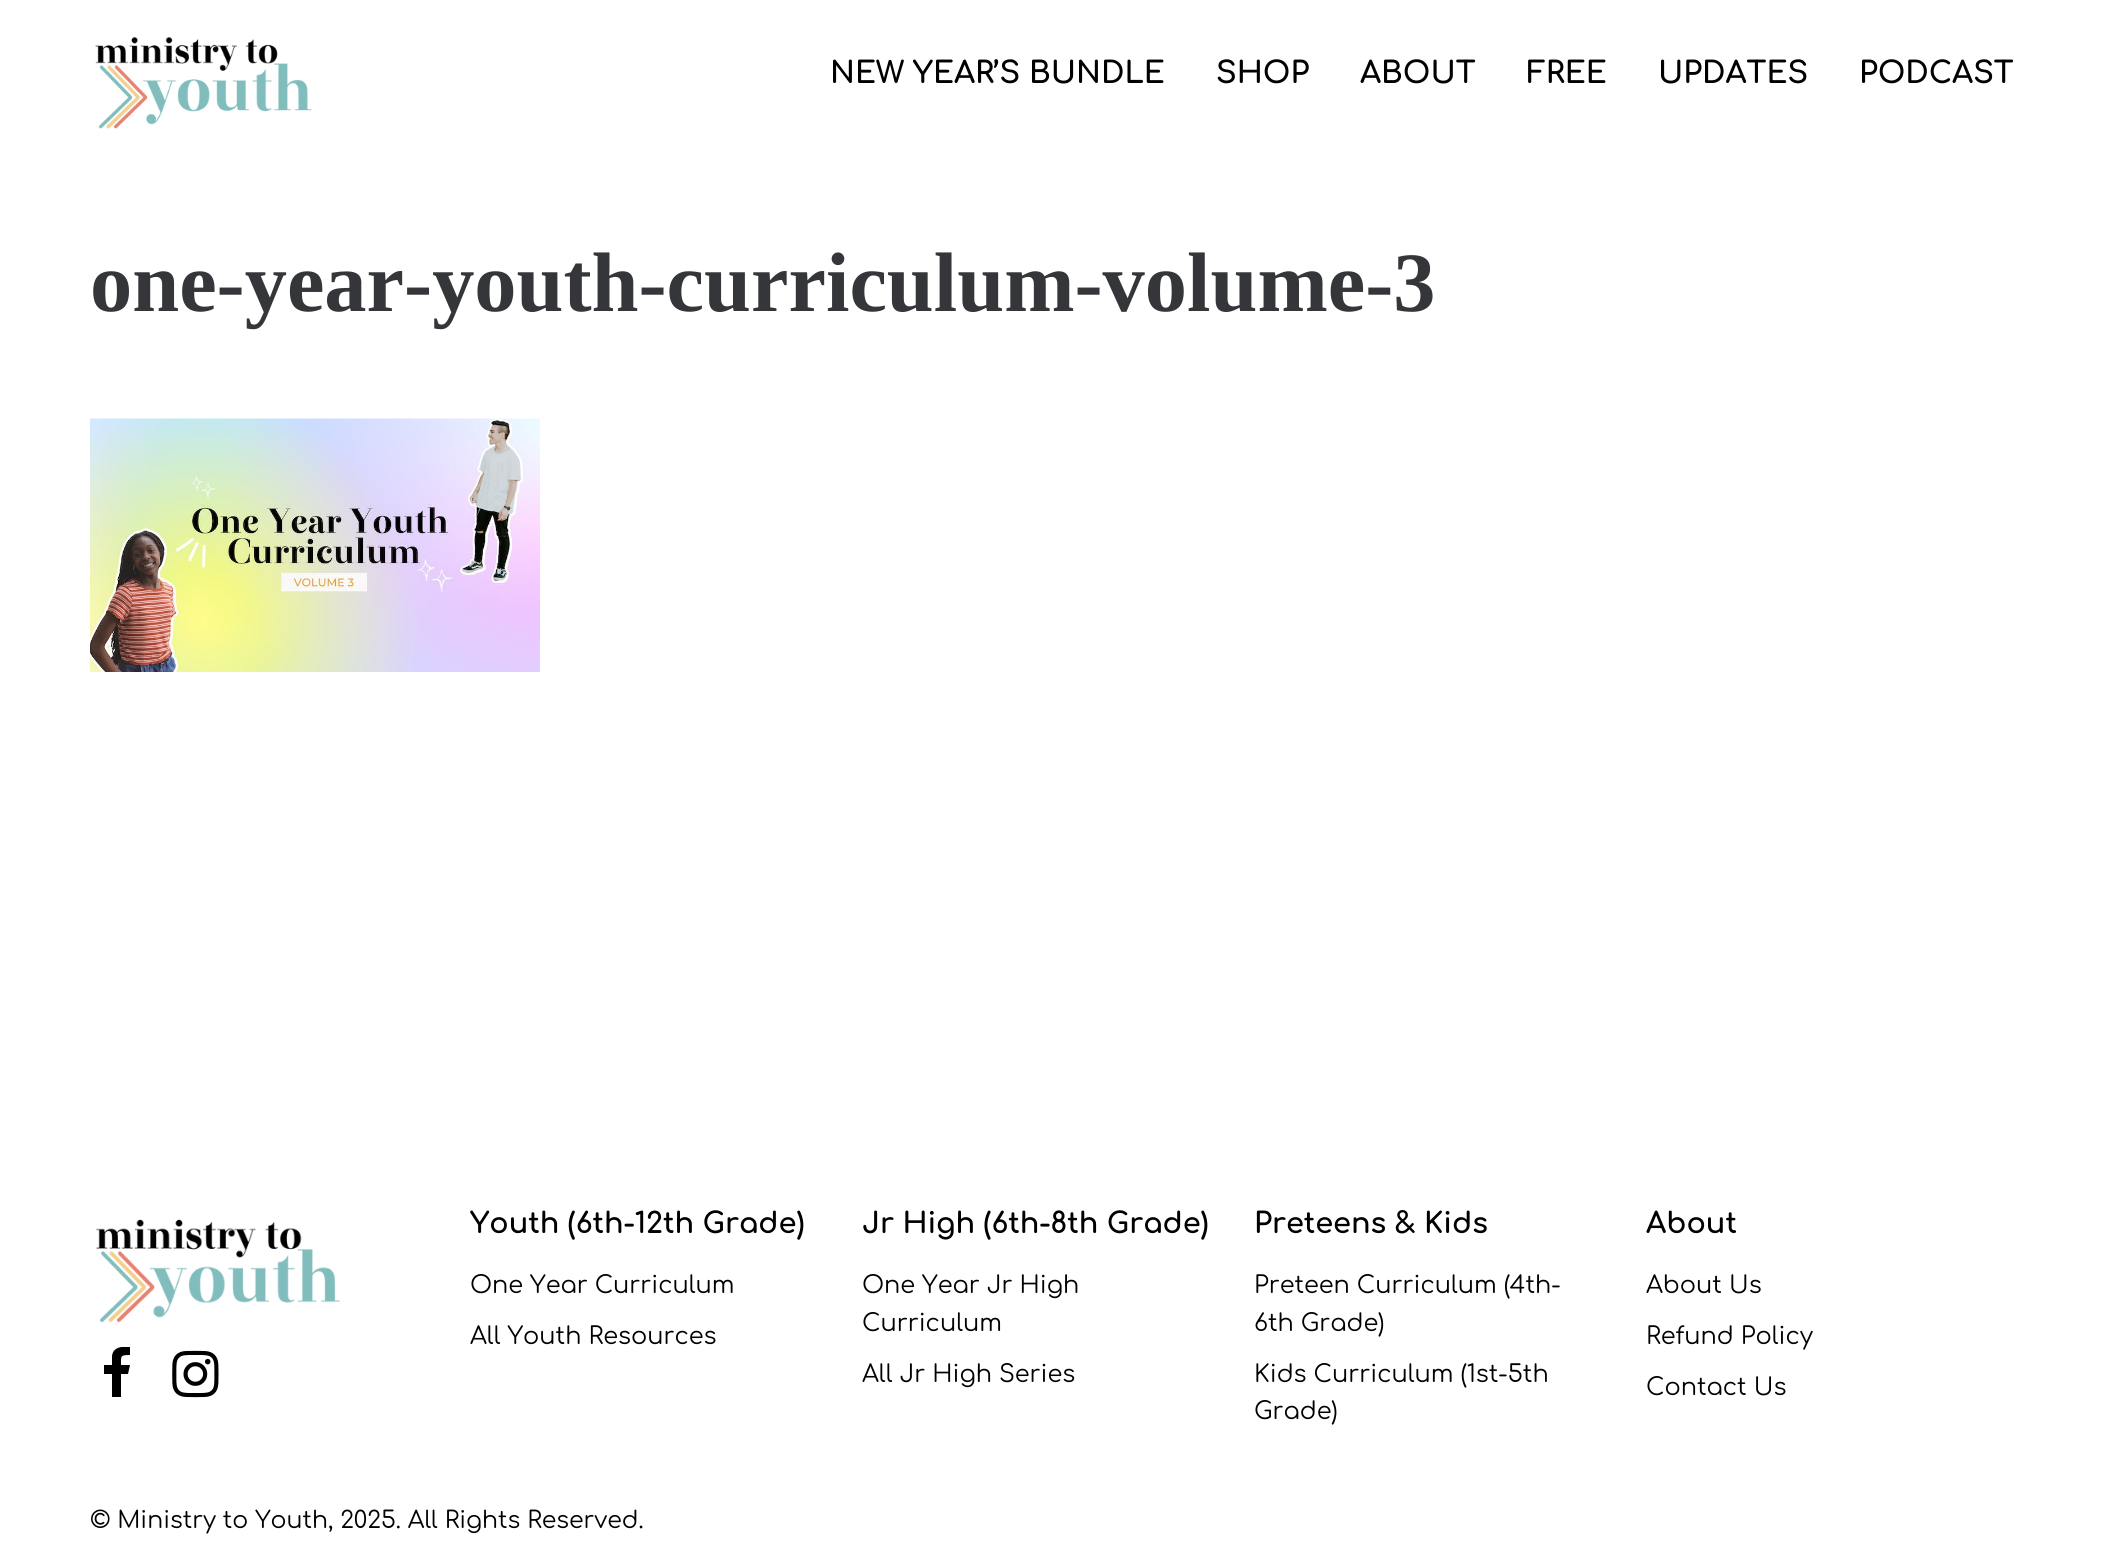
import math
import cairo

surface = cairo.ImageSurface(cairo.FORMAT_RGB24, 2102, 1568)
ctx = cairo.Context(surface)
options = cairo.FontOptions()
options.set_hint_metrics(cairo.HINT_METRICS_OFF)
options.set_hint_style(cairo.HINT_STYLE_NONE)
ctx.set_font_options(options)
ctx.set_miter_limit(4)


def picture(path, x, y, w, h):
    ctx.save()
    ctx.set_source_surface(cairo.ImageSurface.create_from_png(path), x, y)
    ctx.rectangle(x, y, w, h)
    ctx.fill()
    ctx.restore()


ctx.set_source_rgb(1, 1, 1)
ctx.paint()
picture("img1.png", 95, 36, 217, 93)
ctx.select_font_face("Comfortaa", cairo.FONT_SLANT_NORMAL, cairo.FONT_WEIGHT_BOLD)
ctx.set_font_size(30)
ctx.set_source_rgb(0, 0, 0)
ctx.move_to(830, 83)
ctx.show_text("NEW YEAR’S BUNDLE")
ctx.move_to(1216, 83)
ctx.show_text("SHOP")
ctx.move_to(1360, 83)
ctx.show_text("ABOUT")
ctx.move_to(1527, 83)
ctx.show_text("FREE")
ctx.move_to(1658, 83)
ctx.show_text("UPDATES")
ctx.move_to(1859, 83)
ctx.show_text("PODCAST")
ctx.select_font_face("Liberation Serif", cairo.FONT_SLANT_NORMAL, cairo.FONT_WEIGHT_BOLD)
ctx.set_font_size(84.4)
ctx.set_source_rgb(0.204, 0.212, 0.224)
ctx.move_to(90, 311)
ctx.show_text("one-year-youth-curriculum-volume-3")
picture("img2.png", 90, 418, 450, 254)
picture("img3.png", 96, 1219, 244, 104)
ctx.save()
ctx.rectangle(90, 1347, 54, 54)
ctx.clip()
ctx.set_source_rgb(0, 0, 0)
ctx.new_path()
ctx.move_to(130, 1347)
ctx.line_to(130, 1355)
ctx.curve_to(120, 1355, 121, 1356, 121, 1365)
ctx.line_to(130, 1365)
ctx.line_to(128, 1374)
ctx.line_to(121, 1374)
ctx.line_to(121, 1397)
ctx.line_to(112, 1397)
ctx.line_to(112, 1374)
ctx.line_to(104, 1374)
ctx.line_to(104, 1365)
ctx.line_to(112, 1365)
ctx.line_to(112, 1356)
ctx.curve_to(113, 1347, 122, 1346, 130, 1347)
ctx.close_path()
ctx.fill()
ctx.restore()
picture("img4.png", 172, 1350, 47, 48)
ctx.select_font_face("Comfortaa", cairo.FONT_SLANT_NORMAL, cairo.FONT_WEIGHT_BOLD)
ctx.set_font_size(28.75)
ctx.set_source_rgb(0, 0, 0)
ctx.move_to(470, 1233)
ctx.show_text("Youth (6th-12th Grade)")
ctx.select_font_face("Comfortaa")
ctx.set_font_size(24)
ctx.move_to(470, 1293)
ctx.show_text("One Year Curriculum")
ctx.move_to(470, 1344)
ctx.show_text("All Youth Resources")
ctx.select_font_face("Comfortaa", cairo.FONT_SLANT_NORMAL, cairo.FONT_WEIGHT_BOLD)
ctx.set_font_size(28.75)
ctx.move_to(862, 1233)
ctx.show_text("Jr High (6th-8th Grade)")
ctx.select_font_face("Comfortaa")
ctx.set_font_size(24)
ctx.move_to(862, 1293)
ctx.show_text("One Year Jr High")
ctx.move_to(862, 1331)
ctx.show_text("Curriculum")
ctx.move_to(862, 1382)
ctx.show_text("All Jr High Series")
ctx.select_font_face("Comfortaa", cairo.FONT_SLANT_NORMAL, cairo.FONT_WEIGHT_BOLD)
ctx.set_font_size(28.75)
ctx.move_to(1254, 1233)
ctx.show_text("Preteens & Kids")
ctx.select_font_face("Comfortaa")
ctx.set_font_size(24)
ctx.move_to(1254, 1293)
ctx.show_text("Preteen Curriculum (4th-")
ctx.move_to(1254, 1331)
ctx.show_text("6th Grade)")
ctx.move_to(1254, 1382)
ctx.show_text("Kids Curriculum (1st-5th")
ctx.move_to(1254, 1419)
ctx.show_text("Grade)")
ctx.select_font_face("Comfortaa", cairo.FONT_SLANT_NORMAL, cairo.FONT_WEIGHT_BOLD)
ctx.set_font_size(28.75)
ctx.move_to(1646, 1233)
ctx.show_text("About")
ctx.select_font_face("Comfortaa")
ctx.set_font_size(24)
ctx.move_to(1646, 1293)
ctx.show_text("About Us")
ctx.move_to(1646, 1344)
ctx.show_text("Refund Policy")
ctx.move_to(1646, 1395)
ctx.show_text("Contact Us")
ctx.set_font_size(23.6)
ctx.move_to(90, 1528)
ctx.show_text("© Ministry to Youth, 2025. All Rights Reserved.")
surface.write_to_png("page.png")
